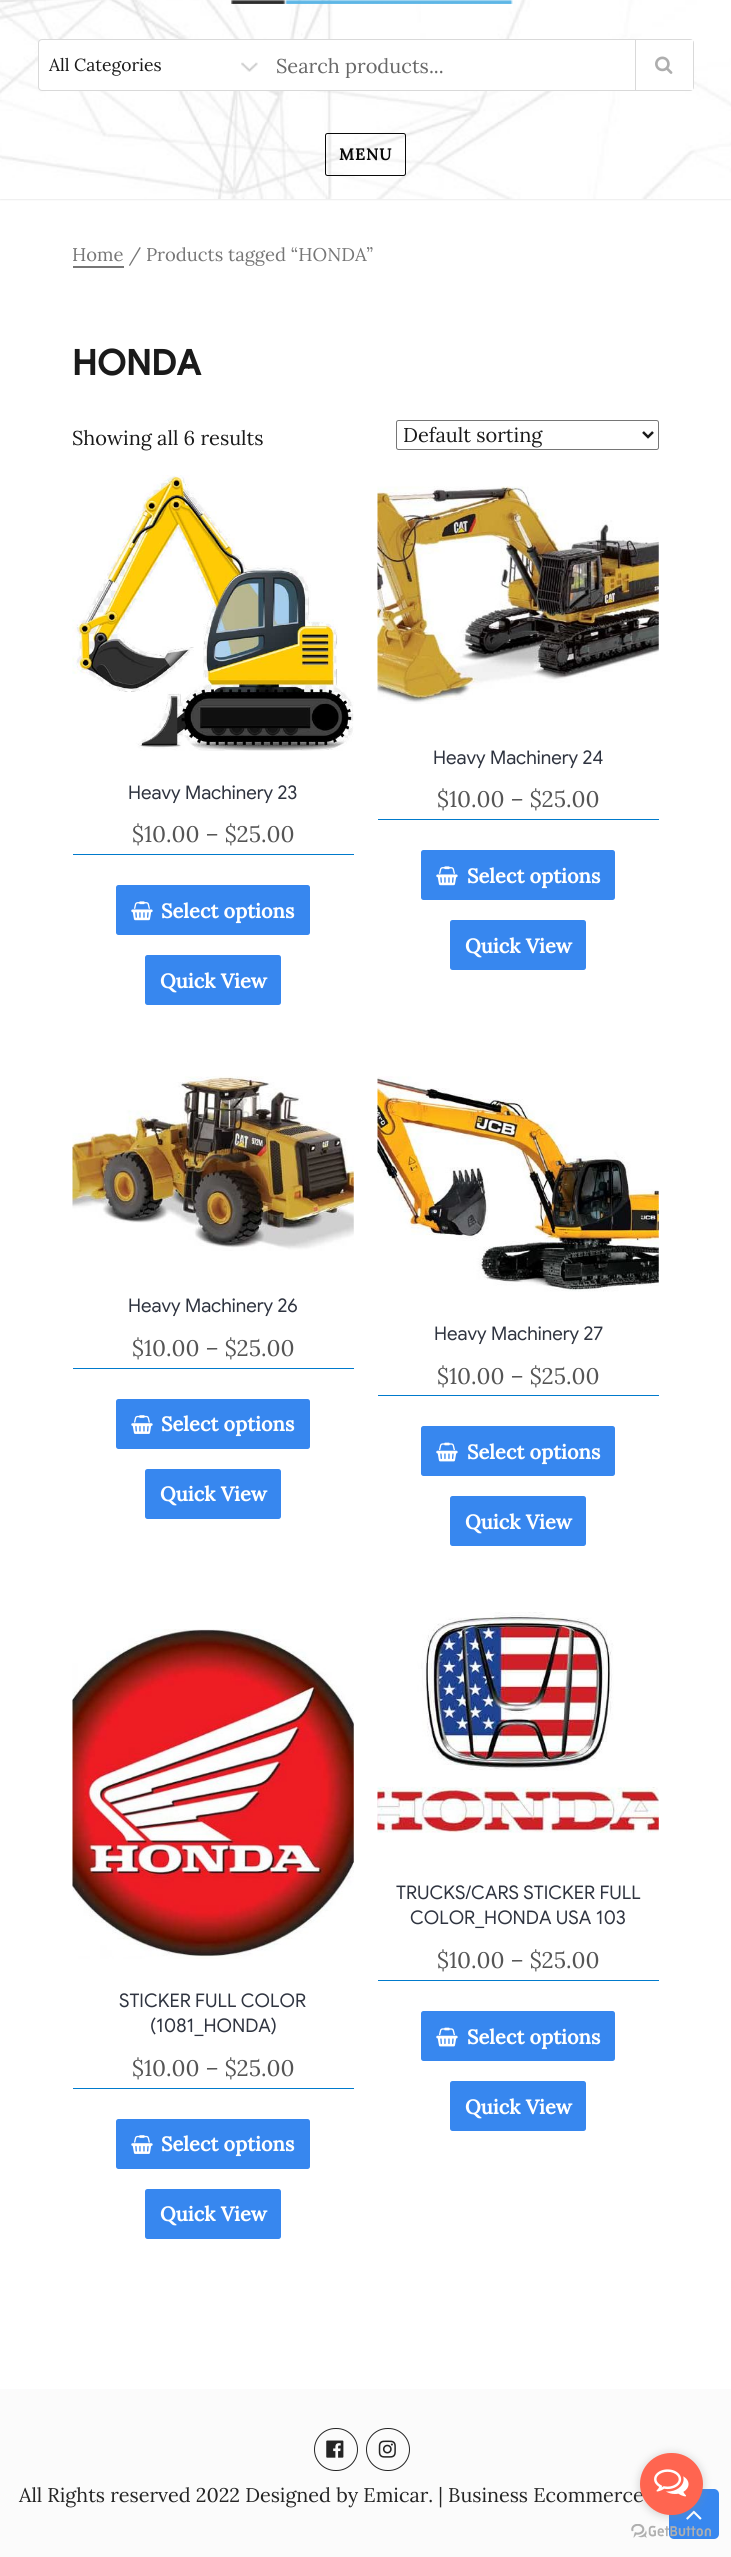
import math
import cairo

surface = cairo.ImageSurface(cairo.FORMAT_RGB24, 731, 2557)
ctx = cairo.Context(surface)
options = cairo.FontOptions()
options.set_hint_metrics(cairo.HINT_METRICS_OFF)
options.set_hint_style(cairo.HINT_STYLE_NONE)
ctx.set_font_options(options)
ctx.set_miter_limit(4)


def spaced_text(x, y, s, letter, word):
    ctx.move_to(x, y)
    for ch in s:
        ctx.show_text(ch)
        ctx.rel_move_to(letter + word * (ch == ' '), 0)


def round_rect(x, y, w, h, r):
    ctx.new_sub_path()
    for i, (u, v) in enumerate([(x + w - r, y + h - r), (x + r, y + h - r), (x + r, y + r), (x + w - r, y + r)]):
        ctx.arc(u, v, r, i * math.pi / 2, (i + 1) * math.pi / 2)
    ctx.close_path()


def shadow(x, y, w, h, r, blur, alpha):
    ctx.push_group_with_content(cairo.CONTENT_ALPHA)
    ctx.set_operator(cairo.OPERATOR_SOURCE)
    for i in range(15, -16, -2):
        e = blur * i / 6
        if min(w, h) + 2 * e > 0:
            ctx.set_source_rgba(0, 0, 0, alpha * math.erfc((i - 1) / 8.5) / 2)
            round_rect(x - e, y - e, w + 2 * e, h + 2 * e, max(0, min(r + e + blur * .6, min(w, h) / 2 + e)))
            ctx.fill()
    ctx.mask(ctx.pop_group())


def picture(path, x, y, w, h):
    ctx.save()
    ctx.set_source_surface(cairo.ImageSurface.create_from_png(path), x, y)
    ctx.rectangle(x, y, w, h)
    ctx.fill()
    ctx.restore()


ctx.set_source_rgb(1, 1, 1)
ctx.paint()
ctx.set_source_rgb(0.933, 0.933, 0.933)
shadow(0, -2, 731, 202, 0, 0.5, 1)
picture("img1.png", 0, 0, 731, 199)
picture("img2.png", 231, 0, 282, 4)
ctx.set_source_rgb(1, 1, 1)
round_rect(38.5, 39.5, 655, 51, 3.5)
ctx.fill_preserve()
ctx.set_source_rgb(0.851, 0.851, 0.851)
ctx.set_line_width(1)
ctx.stroke()
picture("img3.png", 241, 62, 17, 10)
ctx.select_font_face("Lora")
ctx.set_font_size(17.5)
ctx.set_source_rgb(0.102, 0.102, 0.102)
ctx.move_to(49, 71)
ctx.show_text("All Categories")
ctx.set_source_rgb(1, 1, 1)
ctx.rectangle(690, 40, 3, 50)
ctx.fill()
ctx.save()
ctx.rectangle(276, 53, 408, 25)
ctx.clip()
ctx.set_font_size(20)
ctx.set_source_rgb(0.408, 0.408, 0.408)
ctx.move_to(276, 73)
ctx.show_text("Search products...")
ctx.restore()
ctx.set_source_rgb(0.851, 0.851, 0.851)
ctx.rectangle(635, 40, 1, 50)
ctx.fill()
picture("img4.png", 655, 56, 18, 18)
round_rect(325.5, 133.5, 80, 42, 2)
ctx.set_source_rgb(0.039, 0.039, 0.039)
ctx.stroke()
ctx.select_font_face("Lora", cairo.FONT_SLANT_NORMAL, cairo.FONT_WEIGHT_BOLD)
ctx.set_font_size(16)
spaced_text(339, 160, "MENU", 1, 0)
ctx.select_font_face("Lora")
ctx.set_font_size(18.4)
ctx.set_source_rgb(0.463, 0.463, 0.463)
ctx.move_to(72, 261)
ctx.show_text("Home / Products tagged “HONDA”")
ctx.new_path()
ctx.move_to(73, 266)
ctx.line_to(73, 268)
ctx.line_to(124, 268)
ctx.line_to(124, 244)
ctx.line_to(124, 266)
ctx.close_path()
ctx.fill()
ctx.select_font_face("Google Sans", cairo.FONT_SLANT_NORMAL, cairo.FONT_WEIGHT_BOLD)
ctx.set_font_size(35)
ctx.set_source_rgb(0.102, 0.102, 0.102)
ctx.move_to(72, 375)
ctx.show_text("HONDA")
ctx.select_font_face("Lora")
ctx.set_font_size(20)
ctx.move_to(72, 445)
ctx.show_text("Showing all 6 results")
round_rect(396.5, 420.5, 262, 29, 2)
ctx.set_source_rgb(0.463, 0.463, 0.463)
ctx.stroke()
ctx.new_path()
ctx.move_to(643, 432)
ctx.line_to(648, 437)
ctx.line_to(653, 432)
ctx.set_source_rgb(0.102, 0.102, 0.102)
ctx.set_line_width(2.5)
ctx.stroke()
ctx.move_to(403, 442)
ctx.show_text("Default sorting")
ctx.set_source_rgb(0, 0.478, 0.8)
ctx.new_path()
ctx.move_to(73, 854)
ctx.line_to(73, 855)
ctx.line_to(354, 855)
ctx.line_to(354, 476)
ctx.line_to(354, 854)
ctx.close_path()
ctx.fill()
picture("img5.png", 72, 475, 282, 276)
ctx.select_font_face("Google Sans")
ctx.set_font_size(18.75)
ctx.set_source_rgb(0.184, 0.204, 0.251)
ctx.move_to(128, 799)
ctx.show_text("Heavy Machinery 23")
ctx.select_font_face("Lora")
ctx.set_font_size(22.5)
ctx.set_source_rgb(0.333, 0.333, 0.333)
ctx.move_to(132, 842)
ctx.show_text("$10.00 – $25.00")
ctx.set_source_rgb(0.216, 0.529, 0.937)
round_rect(116, 885, 194, 50, 2.5)
ctx.fill()
picture("img6.png", 131, 901, 22, 20)
ctx.select_font_face("Lora", cairo.FONT_SLANT_NORMAL, cairo.FONT_WEIGHT_BOLD)
ctx.set_font_size(20)
ctx.set_source_rgb(1, 1, 1)
ctx.move_to(161, 918)
ctx.show_text("Select options")
ctx.set_source_rgb(0.216, 0.529, 0.937)
round_rect(145, 955, 136, 50, 2.5)
ctx.fill()
ctx.set_source_rgb(1, 1, 1)
ctx.move_to(160, 988)
ctx.show_text("Quick View")
ctx.set_source_rgb(0, 0.478, 0.8)
ctx.new_path()
ctx.move_to(378, 819)
ctx.line_to(378, 820)
ctx.line_to(659, 820)
ctx.line_to(659, 476)
ctx.line_to(659, 819)
ctx.close_path()
ctx.fill()
picture("img7.png", 377, 486, 282, 218)
ctx.select_font_face("Google Sans")
ctx.set_font_size(18.75)
ctx.set_source_rgb(0.184, 0.204, 0.251)
ctx.move_to(433, 764)
ctx.show_text("Heavy Machinery 24")
ctx.select_font_face("Lora")
ctx.set_font_size(22.5)
ctx.set_source_rgb(0.333, 0.333, 0.333)
ctx.move_to(437, 807)
ctx.show_text("$10.00 – $25.00")
ctx.set_source_rgb(0.216, 0.529, 0.937)
round_rect(421, 850, 194, 50, 2.5)
ctx.fill()
picture("img6.png", 436, 866, 22, 20)
ctx.select_font_face("Lora", cairo.FONT_SLANT_NORMAL, cairo.FONT_WEIGHT_BOLD)
ctx.set_font_size(20)
ctx.set_source_rgb(1, 1, 1)
ctx.move_to(467, 883)
ctx.show_text("Select options")
ctx.set_source_rgb(0.216, 0.529, 0.937)
round_rect(450, 920, 136, 50, 2.5)
ctx.fill()
ctx.set_source_rgb(1, 1, 1)
ctx.move_to(465, 953)
ctx.show_text("Quick View")
ctx.set_source_rgb(0, 0.478, 0.8)
ctx.new_path()
ctx.move_to(73, 1368)
ctx.line_to(73, 1369)
ctx.line_to(354, 1369)
ctx.line_to(354, 1066)
ctx.line_to(354, 1368)
ctx.close_path()
ctx.fill()
picture("img8.png", 72, 1076, 282, 175)
ctx.select_font_face("Google Sans")
ctx.set_font_size(18.75)
ctx.set_source_rgb(0.184, 0.204, 0.251)
ctx.move_to(128, 1312)
ctx.show_text("Heavy Machinery 26")
ctx.select_font_face("Lora")
ctx.set_font_size(22.5)
ctx.set_source_rgb(0.333, 0.333, 0.333)
ctx.move_to(132, 1356)
ctx.show_text("$10.00 – $25.00")
ctx.set_source_rgb(0.216, 0.529, 0.937)
round_rect(116, 1399, 194, 50, 2.5)
ctx.fill()
picture("img9.png", 131, 1415, 22, 19)
ctx.select_font_face("Lora", cairo.FONT_SLANT_NORMAL, cairo.FONT_WEIGHT_BOLD)
ctx.set_font_size(20)
ctx.set_source_rgb(1, 1, 1)
ctx.move_to(161, 1431)
ctx.show_text("Select options")
ctx.set_source_rgb(0.216, 0.529, 0.937)
round_rect(145, 1469, 136, 50, 2.5)
ctx.fill()
ctx.set_source_rgb(1, 1, 1)
ctx.move_to(160, 1501)
ctx.show_text("Quick View")
ctx.set_source_rgb(0, 0.478, 0.8)
ctx.new_path()
ctx.move_to(378, 1395)
ctx.line_to(378, 1396)
ctx.line_to(659, 1396)
ctx.line_to(659, 1066)
ctx.line_to(659, 1395)
ctx.close_path()
ctx.fill()
picture("img10.png", 377, 1076, 282, 216)
ctx.select_font_face("Google Sans")
ctx.set_font_size(18.75)
ctx.set_source_rgb(0.184, 0.204, 0.251)
ctx.move_to(434, 1340)
ctx.show_text("Heavy Machinery 27")
ctx.select_font_face("Lora")
ctx.set_font_size(22.5)
ctx.set_source_rgb(0.333, 0.333, 0.333)
ctx.move_to(437, 1384)
ctx.show_text("$10.00 – $25.00")
ctx.set_source_rgb(0.216, 0.529, 0.937)
round_rect(421, 1426, 194, 50, 2.5)
ctx.fill()
picture("img11.png", 436, 1442, 22, 20)
ctx.select_font_face("Lora", cairo.FONT_SLANT_NORMAL, cairo.FONT_WEIGHT_BOLD)
ctx.set_font_size(20)
ctx.set_source_rgb(1, 1, 1)
ctx.move_to(467, 1459)
ctx.show_text("Select options")
ctx.set_source_rgb(0.216, 0.529, 0.937)
round_rect(450, 1496, 136, 50, 2.5)
ctx.fill()
ctx.set_source_rgb(1, 1, 1)
ctx.move_to(465, 1529)
ctx.show_text("Quick View")
ctx.set_source_rgb(0, 0.478, 0.8)
ctx.new_path()
ctx.move_to(73, 2088)
ctx.line_to(73, 2089)
ctx.line_to(354, 2089)
ctx.line_to(354, 1608)
ctx.line_to(354, 2088)
ctx.close_path()
ctx.fill()
picture("img12.png", 72, 1629, 282, 330)
ctx.select_font_face("Google Sans")
ctx.set_font_size(18.75)
ctx.set_source_rgb(0.184, 0.204, 0.251)
ctx.move_to(119, 2007)
ctx.show_text("STICKER FULL COLOR")
ctx.move_to(150, 2032)
ctx.show_text("(1081_HONDA)")
ctx.select_font_face("Lora")
ctx.set_font_size(22.5)
ctx.set_source_rgb(0.333, 0.333, 0.333)
ctx.move_to(132, 2076)
ctx.show_text("$10.00 – $25.00")
ctx.set_source_rgb(0.216, 0.529, 0.937)
round_rect(116, 2119, 194, 50, 2.5)
ctx.fill()
picture("img9.png", 131, 2135, 22, 19)
ctx.select_font_face("Lora", cairo.FONT_SLANT_NORMAL, cairo.FONT_WEIGHT_BOLD)
ctx.set_font_size(20)
ctx.set_source_rgb(1, 1, 1)
ctx.move_to(161, 2151)
ctx.show_text("Select options")
ctx.set_source_rgb(0.216, 0.529, 0.937)
round_rect(145, 2189, 136, 50, 2.5)
ctx.fill()
ctx.set_source_rgb(1, 1, 1)
ctx.move_to(160, 2221)
ctx.show_text("Quick View")
ctx.set_source_rgb(0, 0.478, 0.8)
ctx.new_path()
ctx.move_to(378, 1980)
ctx.line_to(378, 1981)
ctx.line_to(659, 1981)
ctx.line_to(659, 1608)
ctx.line_to(659, 1980)
ctx.close_path()
ctx.fill()
picture("img13.png", 377, 1612, 282, 221)
ctx.select_font_face("Google Sans")
ctx.set_font_size(18.75)
ctx.set_source_rgb(0.184, 0.204, 0.251)
ctx.move_to(396, 1899)
ctx.show_text("TRUCKS/CARS STICKER FULL")
ctx.move_to(410, 1924)
ctx.show_text("COLOR_HONDA USA 103")
ctx.select_font_face("Lora")
ctx.set_font_size(22.5)
ctx.set_source_rgb(0.333, 0.333, 0.333)
ctx.move_to(437, 1968)
ctx.show_text("$10.00 – $25.00")
ctx.set_source_rgb(0.216, 0.529, 0.937)
round_rect(421, 2011, 194, 50, 2.5)
ctx.fill()
picture("img11.png", 436, 2027, 22, 20)
ctx.select_font_face("Lora", cairo.FONT_SLANT_NORMAL, cairo.FONT_WEIGHT_BOLD)
ctx.set_font_size(20)
ctx.set_source_rgb(1, 1, 1)
ctx.move_to(467, 2044)
ctx.show_text("Select options")
ctx.set_source_rgb(0.216, 0.529, 0.937)
round_rect(450, 2081, 136, 50, 2.5)
ctx.fill()
ctx.set_source_rgb(1, 1, 1)
ctx.move_to(465, 2114)
ctx.show_text("Quick View")
ctx.set_source_rgb(0.984, 0.984, 0.984)
ctx.rectangle(0, 2389, 731, 168)
ctx.fill()
round_rect(314.5, 2428.5, 43, 42, 21)
ctx.set_source_rgb(0.141, 0.141, 0.141)
ctx.set_line_width(1)
ctx.stroke()
picture("img14.png", 326, 2440, 18, 18)
round_rect(366.5, 2428.5, 43, 42, 21)
ctx.stroke()
picture("img15.png", 378, 2440, 18, 18)
ctx.select_font_face("Lora")
ctx.set_font_size(19.8)
ctx.move_to(19, 2502)
ctx.show_text("All Rights reserved 2022 Designed by Emicar. | Business Ecommerce")
ctx.set_source_rgb(0.216, 0.529, 0.937)
round_rect(669, 2489, 50, 50, 5)
ctx.fill()
picture("img16.png", 686, 2510, 16, 10)
picture("img18.png", 631, 2524, 80, 14)
ctx.set_source_rgb(0.533, 0.533, 0.533)
shadow(640, 2454, 63, 62, 31, 4.5, 0.4)
ctx.set_source_rgb(1, 0.396, 0.314)
round_rect(640, 2453, 63, 62, 31)
ctx.fill()
picture("img17.png", 654, 2469, 35, 28)
surface.write_to_png("page.png")
